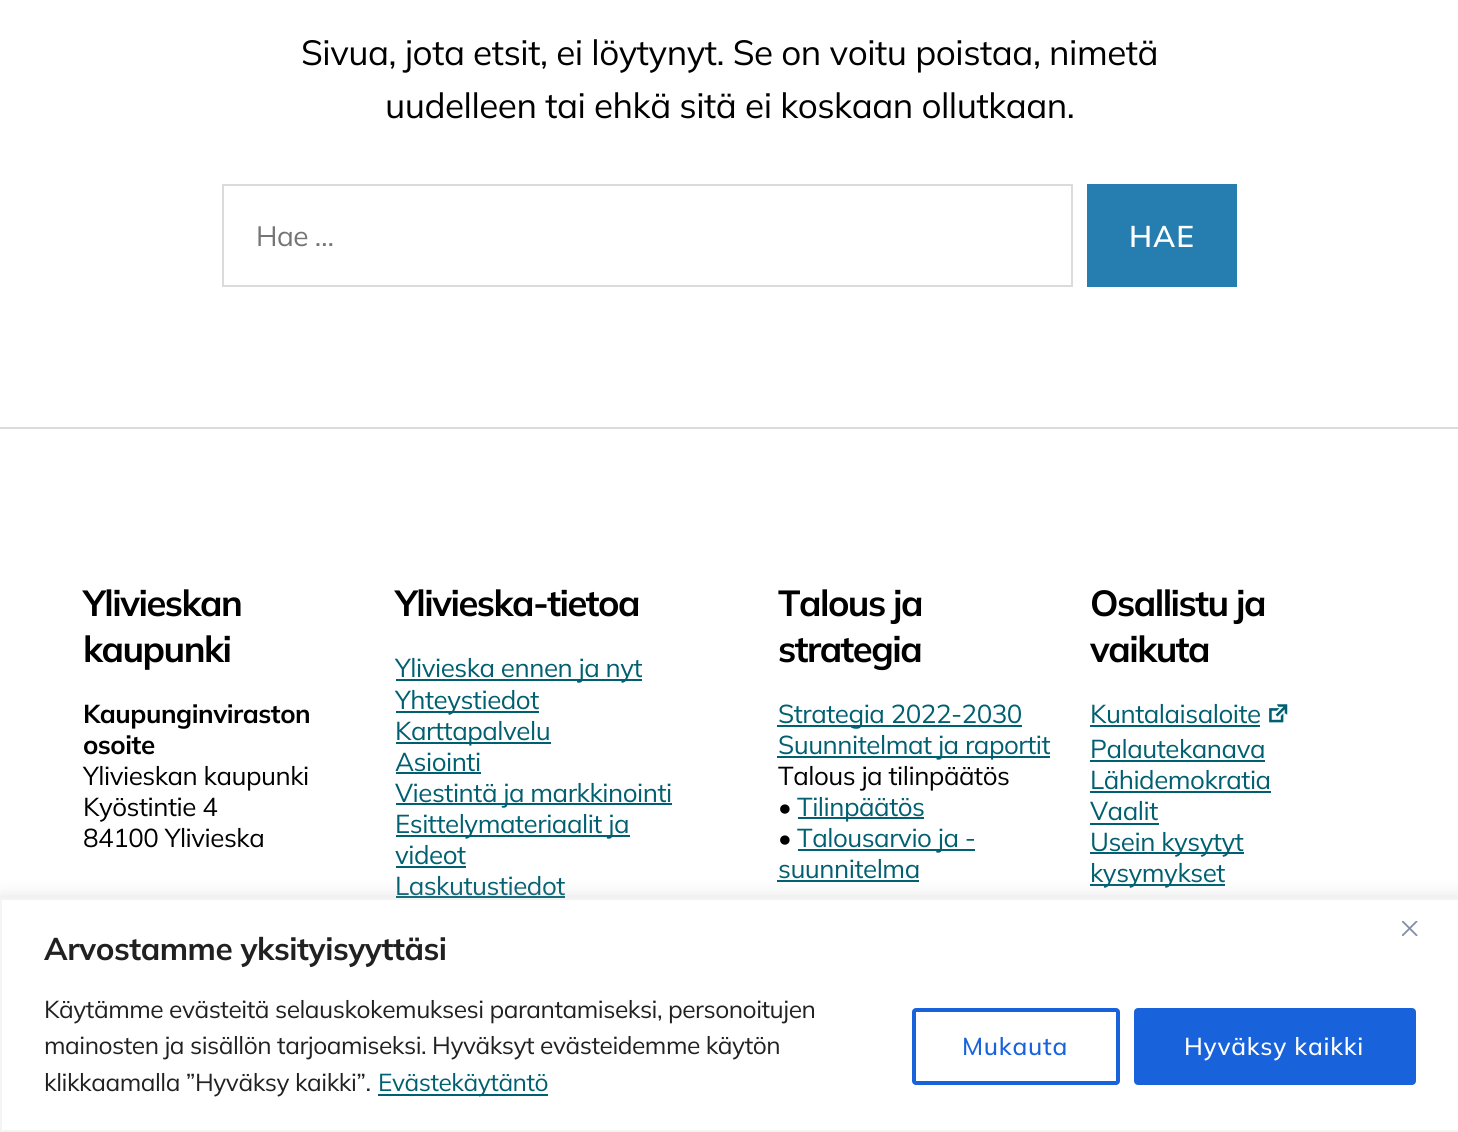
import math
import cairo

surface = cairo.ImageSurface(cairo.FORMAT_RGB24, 1458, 1132)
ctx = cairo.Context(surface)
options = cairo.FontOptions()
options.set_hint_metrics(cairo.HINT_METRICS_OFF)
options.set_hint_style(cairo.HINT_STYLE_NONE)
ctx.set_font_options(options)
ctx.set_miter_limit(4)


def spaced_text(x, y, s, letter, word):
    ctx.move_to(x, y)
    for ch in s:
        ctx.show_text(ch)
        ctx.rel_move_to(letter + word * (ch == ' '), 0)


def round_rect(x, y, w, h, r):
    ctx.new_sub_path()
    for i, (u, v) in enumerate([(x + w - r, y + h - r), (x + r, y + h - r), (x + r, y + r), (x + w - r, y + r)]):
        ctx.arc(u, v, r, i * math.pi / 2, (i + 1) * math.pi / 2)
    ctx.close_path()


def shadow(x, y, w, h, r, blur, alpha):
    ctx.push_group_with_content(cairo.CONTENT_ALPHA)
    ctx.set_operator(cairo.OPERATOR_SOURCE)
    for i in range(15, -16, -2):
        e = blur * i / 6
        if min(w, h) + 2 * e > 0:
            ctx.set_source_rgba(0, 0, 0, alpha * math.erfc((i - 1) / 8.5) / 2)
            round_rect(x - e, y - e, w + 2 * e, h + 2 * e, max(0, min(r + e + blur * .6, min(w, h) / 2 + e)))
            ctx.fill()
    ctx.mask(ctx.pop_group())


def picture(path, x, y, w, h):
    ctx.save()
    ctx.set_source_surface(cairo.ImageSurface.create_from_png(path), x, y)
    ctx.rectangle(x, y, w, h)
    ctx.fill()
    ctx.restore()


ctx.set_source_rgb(1, 1, 1)
ctx.paint()
ctx.select_font_face("Mulish")
ctx.set_font_size(35)
ctx.set_source_rgb(0, 0, 0)
spaced_text(301, 65, "Sivua, jota etsit, ei löytynyt. Se on voitu poistaa, nimetä", -0.47, 0)
spaced_text(385, 118, "uudelleen tai ehkä sitä ei koskaan ollutkaan.", -0.47, 0)
ctx.rectangle(223, 185, 849, 101)
ctx.set_source_rgb(0.859, 0.859, 0.859)
ctx.stroke()
ctx.set_font_size(28)
ctx.set_source_rgb(0.459, 0.459, 0.459)
spaced_text(256, 246, "Hae …", -0.5, 0)
ctx.set_source_rgb(0.145, 0.49, 0.69)
ctx.rectangle(1087, 184, 150, 103)
ctx.fill()
ctx.select_font_face("Mulish SemiBold")
ctx.set_font_size(30)
ctx.set_source_rgb(1, 1, 1)
spaced_text(1129, 247, "HAE", 1, 0)
ctx.set_source_rgb(0.859, 0.859, 0.859)
ctx.rectangle(0, 427, 1458, 2)
ctx.fill()
ctx.select_font_face("Mulish", cairo.FONT_SLANT_NORMAL, cairo.FONT_WEIGHT_BOLD)
ctx.set_font_size(36.25)
ctx.set_source_rgb(0, 0, 0)
spaced_text(83, 616, "Ylivieskan", -1.5, 0)
spaced_text(83, 662, "kaupunki", -1.5, 0)
ctx.set_font_size(25.9)
spaced_text(83, 723, "Kaupunginviraston", -0.47, 0)
spaced_text(83, 754, "osoite", -0.47, 0)
ctx.select_font_face("Mulish")
spaced_text(83, 785, "Ylivieskan kaupunki", -0.47, 0)
spaced_text(83, 816, "Kyöstintie 4", -0.47, 0)
spaced_text(83, 847, "84100 Ylivieska", -0.47, 0)
ctx.select_font_face("Mulish", cairo.FONT_SLANT_NORMAL, cairo.FONT_WEIGHT_BOLD)
ctx.set_font_size(36.25)
spaced_text(395, 616, "Ylivieska-tietoa", -1.5, 0)
ctx.set_source_rgb(0, 0.373, 0.439)
ctx.rectangle(396, 679, 246, 2)
ctx.fill()
ctx.select_font_face("Mulish")
ctx.set_font_size(25.9)
spaced_text(395, 677, "Ylivieska ennen ja nyt", -0.47, 0)
ctx.rectangle(396, 711, 143, 2)
ctx.fill()
spaced_text(395, 709, "Yhteystiedot", -0.47, 0)
ctx.rectangle(396, 742, 155, 2)
ctx.fill()
spaced_text(395, 740, "Karttapalvelu", -0.47, 0)
spaced_text(395, 771, "Asiointi", -0.47, 0)
ctx.rectangle(396, 772, 85, 2)
ctx.fill()
ctx.rectangle(396, 803, 276, 2)
ctx.fill()
spaced_text(395, 802, "Viestintä ja markkinointi", -0.47, 0)
ctx.rectangle(396, 835, 234, 2)
ctx.fill()
spaced_text(395, 833, "Esittelymateriaalit ja", -0.47, 0)
spaced_text(395, 864, "videot", -0.47, 0)
ctx.rectangle(396, 866, 70, 2)
ctx.fill()
spaced_text(395, 895, "Laskutustiedot", -0.47, 0)
ctx.rectangle(396, 896, 169, 2)
ctx.fill()
ctx.select_font_face("Mulish", cairo.FONT_SLANT_NORMAL, cairo.FONT_WEIGHT_BOLD)
ctx.set_font_size(36.25)
ctx.set_source_rgb(0, 0, 0)
spaced_text(778, 616, "Talous ja", -1.5, 0)
spaced_text(778, 662, "strategia", -1.5, 0)
ctx.set_source_rgb(0, 0.373, 0.439)
ctx.rectangle(777, 725, 245, 2)
ctx.fill()
ctx.select_font_face("Mulish")
ctx.set_font_size(25.9)
spaced_text(778, 723, "Strategia 2022-2030", -0.47, 0)
ctx.rectangle(777, 756, 273, 2)
ctx.fill()
spaced_text(778, 754, "Suunnitelmat ja raportit", -0.47, 0)
ctx.set_source_rgb(0, 0, 0)
spaced_text(778, 785, "Talous ja tilinpäätös", -0.47, 0)
spaced_text(778, 816, "•", -0.47, 0)
ctx.set_source_rgb(0, 0.373, 0.439)
ctx.rectangle(798, 817, 126, 2)
ctx.fill()
spaced_text(797, 816, "Tilinpäätös", -0.47, 0)
ctx.set_source_rgb(0, 0, 0)
spaced_text(778, 847, "•", -0.47, 0)
ctx.set_source_rgb(0, 0.373, 0.439)
ctx.rectangle(798, 849, 177, 2)
ctx.fill()
spaced_text(797, 847, "Talousarvio ja -", -0.47, 0)
spaced_text(778, 878, "suunnitelma", -0.47, 0)
ctx.rectangle(777, 880, 142, 2)
ctx.fill()
ctx.select_font_face("Mulish", cairo.FONT_SLANT_NORMAL, cairo.FONT_WEIGHT_BOLD)
ctx.set_font_size(36.25)
ctx.set_source_rgb(0, 0, 0)
spaced_text(1090, 616, "Osallistu ja", -1.5, 0)
spaced_text(1090, 662, "vaikuta", -1.5, 0)
ctx.select_font_face("Mulish")
ctx.set_font_size(25.9)
ctx.set_source_rgb(0, 0.373, 0.439)
spaced_text(1090, 723, "Kuntalaisaloite", -0.47, 0)
ctx.rectangle(1090, 725, 170, 2)
ctx.fill()
picture("img1.png", 1269, 704, 19, 19)
spaced_text(1090, 758, "Palautekanava", -0.47, 0)
ctx.rectangle(1090, 760, 175, 2)
ctx.fill()
spaced_text(1090, 789, "Lähidemokratia", -0.47, 0)
ctx.rectangle(1090, 791, 181, 2)
ctx.fill()
spaced_text(1090, 820, "Vaalit", -0.47, 0)
ctx.rectangle(1090, 823, 69, 2)
ctx.fill()
ctx.rectangle(1090, 852, 154, 2)
ctx.fill()
spaced_text(1090, 851, "Usein kysytyt", -0.47, 0)
ctx.rectangle(1090, 884, 135, 2)
ctx.fill()
spaced_text(1090, 882, "kysymykset", -0.47, 0)
ctx.set_source_rgb(0.675, 0.671, 0.671)
shadow(0, 896, 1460, 235, 0, 9, 0.3)
ctx.set_source_rgb(1, 1, 1)
ctx.rectangle(1, 899, 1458, 232)
ctx.fill_preserve()
ctx.set_source_rgb(0.957, 0.957, 0.957)
ctx.stroke()
picture("img2.png", 1402, 921, 16, 15)
ctx.select_font_face("Mulish", cairo.FONT_SLANT_NORMAL, cairo.FONT_WEIGHT_BOLD)
ctx.set_font_size(31.5)
ctx.set_source_rgb(0.129, 0.129, 0.129)
spaced_text(44, 960, "Arvostamme yksityisyyttäsi", -0.47, 0)
ctx.select_font_face("Mulish")
ctx.set_font_size(24.5)
spaced_text(44, 1018, "Käytämme evästeitä selauskokemuksesi parantamiseksi, personoitujen", -0.47, 0)
spaced_text(44, 1054, "mainosten ja sisällön tarjoamiseksi. Hyväksyt evästeidemme käytön", -0.47, 0)
spaced_text(44, 1091, "klikkaamalla ”Hyväksy kaikki”.", -0.47, 0)
ctx.set_source_rgb(0, 0.373, 0.439)
ctx.rectangle(378, 1094, 170, 2)
ctx.fill()
spaced_text(378, 1091, "Evästekäytäntö", -0.47, 0)
round_rect(914, 1010, 204, 73, 2)
ctx.set_source_rgb(0.094, 0.388, 0.863)
ctx.set_line_width(4)
ctx.stroke()
ctx.select_font_face("Mulish Medium")
spaced_text(962, 1055, "Mukauta", 0.75, 0)
round_rect(1136, 1010, 278, 73, 2)
ctx.fill_preserve()
ctx.stroke()
ctx.set_source_rgb(1, 1, 1)
spaced_text(1184, 1055, "Hyväksy kaikki", 0.75, 0)
surface.write_to_png("page.png")
